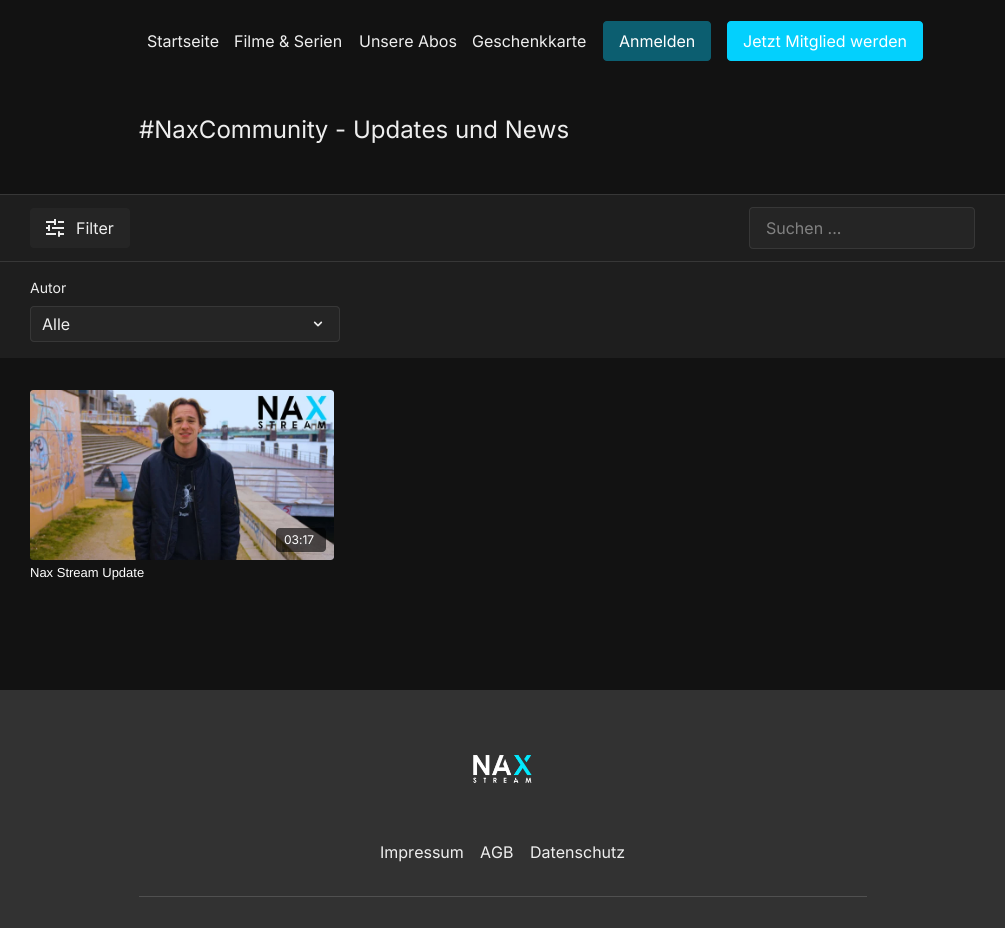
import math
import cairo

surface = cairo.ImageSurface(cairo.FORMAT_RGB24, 1005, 928)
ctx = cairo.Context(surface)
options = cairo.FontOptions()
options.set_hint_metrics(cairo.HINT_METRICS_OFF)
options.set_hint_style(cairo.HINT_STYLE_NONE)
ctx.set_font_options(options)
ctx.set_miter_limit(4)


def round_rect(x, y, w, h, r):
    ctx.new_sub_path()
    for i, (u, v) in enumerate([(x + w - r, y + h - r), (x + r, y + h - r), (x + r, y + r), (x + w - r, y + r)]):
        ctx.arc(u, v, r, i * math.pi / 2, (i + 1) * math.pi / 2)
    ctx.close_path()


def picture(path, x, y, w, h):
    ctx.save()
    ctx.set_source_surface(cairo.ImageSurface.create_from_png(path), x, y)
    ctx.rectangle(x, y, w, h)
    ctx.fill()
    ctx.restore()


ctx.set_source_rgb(0.071, 0.071, 0.071)
ctx.paint()
ctx.select_font_face("Inter")
ctx.set_font_size(16)
ctx.set_source_rgb(0.933, 0.933, 0.933)
ctx.move_to(147, 47)
ctx.show_text("Startseite")
ctx.move_to(234, 47)
ctx.show_text("Filme & Serien")
ctx.move_to(359, 47)
ctx.show_text("Unsere Abos")
ctx.move_to(472, 47)
ctx.show_text("Geschenkkarte")
ctx.set_source_rgb(0.047, 0.369, 0.439)
round_rect(603.5, 21.5, 107, 39, 3.5)
ctx.fill_preserve()
ctx.set_line_width(1)
ctx.stroke()
ctx.set_source_rgb(1, 1, 1)
ctx.move_to(619, 47)
ctx.show_text("Anmelden")
ctx.set_source_rgb(0.012, 0.816, 0.992)
round_rect(727.5, 21.5, 195, 39, 3.5)
ctx.fill_preserve()
ctx.stroke()
ctx.set_source_rgb(1, 1, 1)
ctx.move_to(743, 47)
ctx.show_text("Jetzt Mitglied werden")
ctx.set_source_rgb(0.216, 0.216, 0.216)
ctx.rectangle(0, 194, 1005, 1)
ctx.fill()
ctx.set_font_size(24)
ctx.set_source_rgb(0.933, 0.933, 0.933)
ctx.move_to(139, 138)
ctx.show_text("#NaxCommunity - Updates und News")
ctx.set_source_rgb(0.118, 0.118, 0.118)
ctx.rectangle(0, 195, 1005, 163)
ctx.fill()
ctx.set_source_rgb(0.216, 0.216, 0.216)
ctx.rectangle(0, 261, 1005, 1)
ctx.fill()
ctx.set_source_rgb(0.145, 0.145, 0.145)
round_rect(30, 208, 100, 40, 4)
ctx.fill()
picture("img1.png", 46, 219, 18, 18)
ctx.set_font_size(16)
ctx.set_source_rgb(0.933, 0.933, 0.933)
ctx.move_to(76, 234)
ctx.show_text("Filter")
ctx.set_source_rgb(0.145, 0.145, 0.145)
round_rect(749.5, 207.5, 225, 41, 3.5)
ctx.fill_preserve()
ctx.set_source_rgb(0.216, 0.216, 0.216)
ctx.stroke()
ctx.set_source_rgb(0.506, 0.506, 0.506)
ctx.move_to(766, 234)
ctx.show_text("Suchen ...")
ctx.set_font_size(14)
ctx.set_source_rgb(0.933, 0.933, 0.933)
ctx.move_to(30, 293)
ctx.show_text("Autor")
ctx.set_source_rgb(0.145, 0.145, 0.145)
round_rect(30, 306, 310, 36, 4)
ctx.fill()
picture("img2.png", 313, 321, 10, 6)
round_rect(30.5, 306.5, 309, 35, 3.5)
ctx.set_source_rgb(0.216, 0.216, 0.216)
ctx.stroke()
ctx.set_font_size(16)
ctx.set_source_rgb(0.933, 0.933, 0.933)
ctx.move_to(42, 330)
ctx.show_text("Alle")
picture("img3.png", 30, 390, 304, 170)
ctx.set_source_rgba(0, 0, 0, 0.6)
round_rect(276, 528, 50, 24, 4)
ctx.fill()
ctx.set_font_size(12)
ctx.set_source_rgb(1, 1, 1)
ctx.move_to(284, 544)
ctx.show_text("03:17")
ctx.select_font_face("Liberation Sans")
ctx.set_font_size(13)
ctx.move_to(30, 577)
ctx.show_text("Nax Stream Update")
ctx.set_source_rgb(0.196, 0.196, 0.196)
ctx.rectangle(0, 690, 1005, 238)
ctx.fill()
picture("img4.png", 473, 755, 59, 28)
ctx.select_font_face("Inter")
ctx.set_font_size(16)
ctx.set_source_rgb(0.933, 0.933, 0.933)
ctx.move_to(380, 858)
ctx.show_text("Impressum")
ctx.move_to(480, 858)
ctx.show_text("AGB")
ctx.move_to(530, 858)
ctx.show_text("Datenschutz")
ctx.set_source_rgb(0.314, 0.314, 0.314)
ctx.rectangle(139, 896, 728, 1)
ctx.fill()
surface.write_to_png("page.png")
